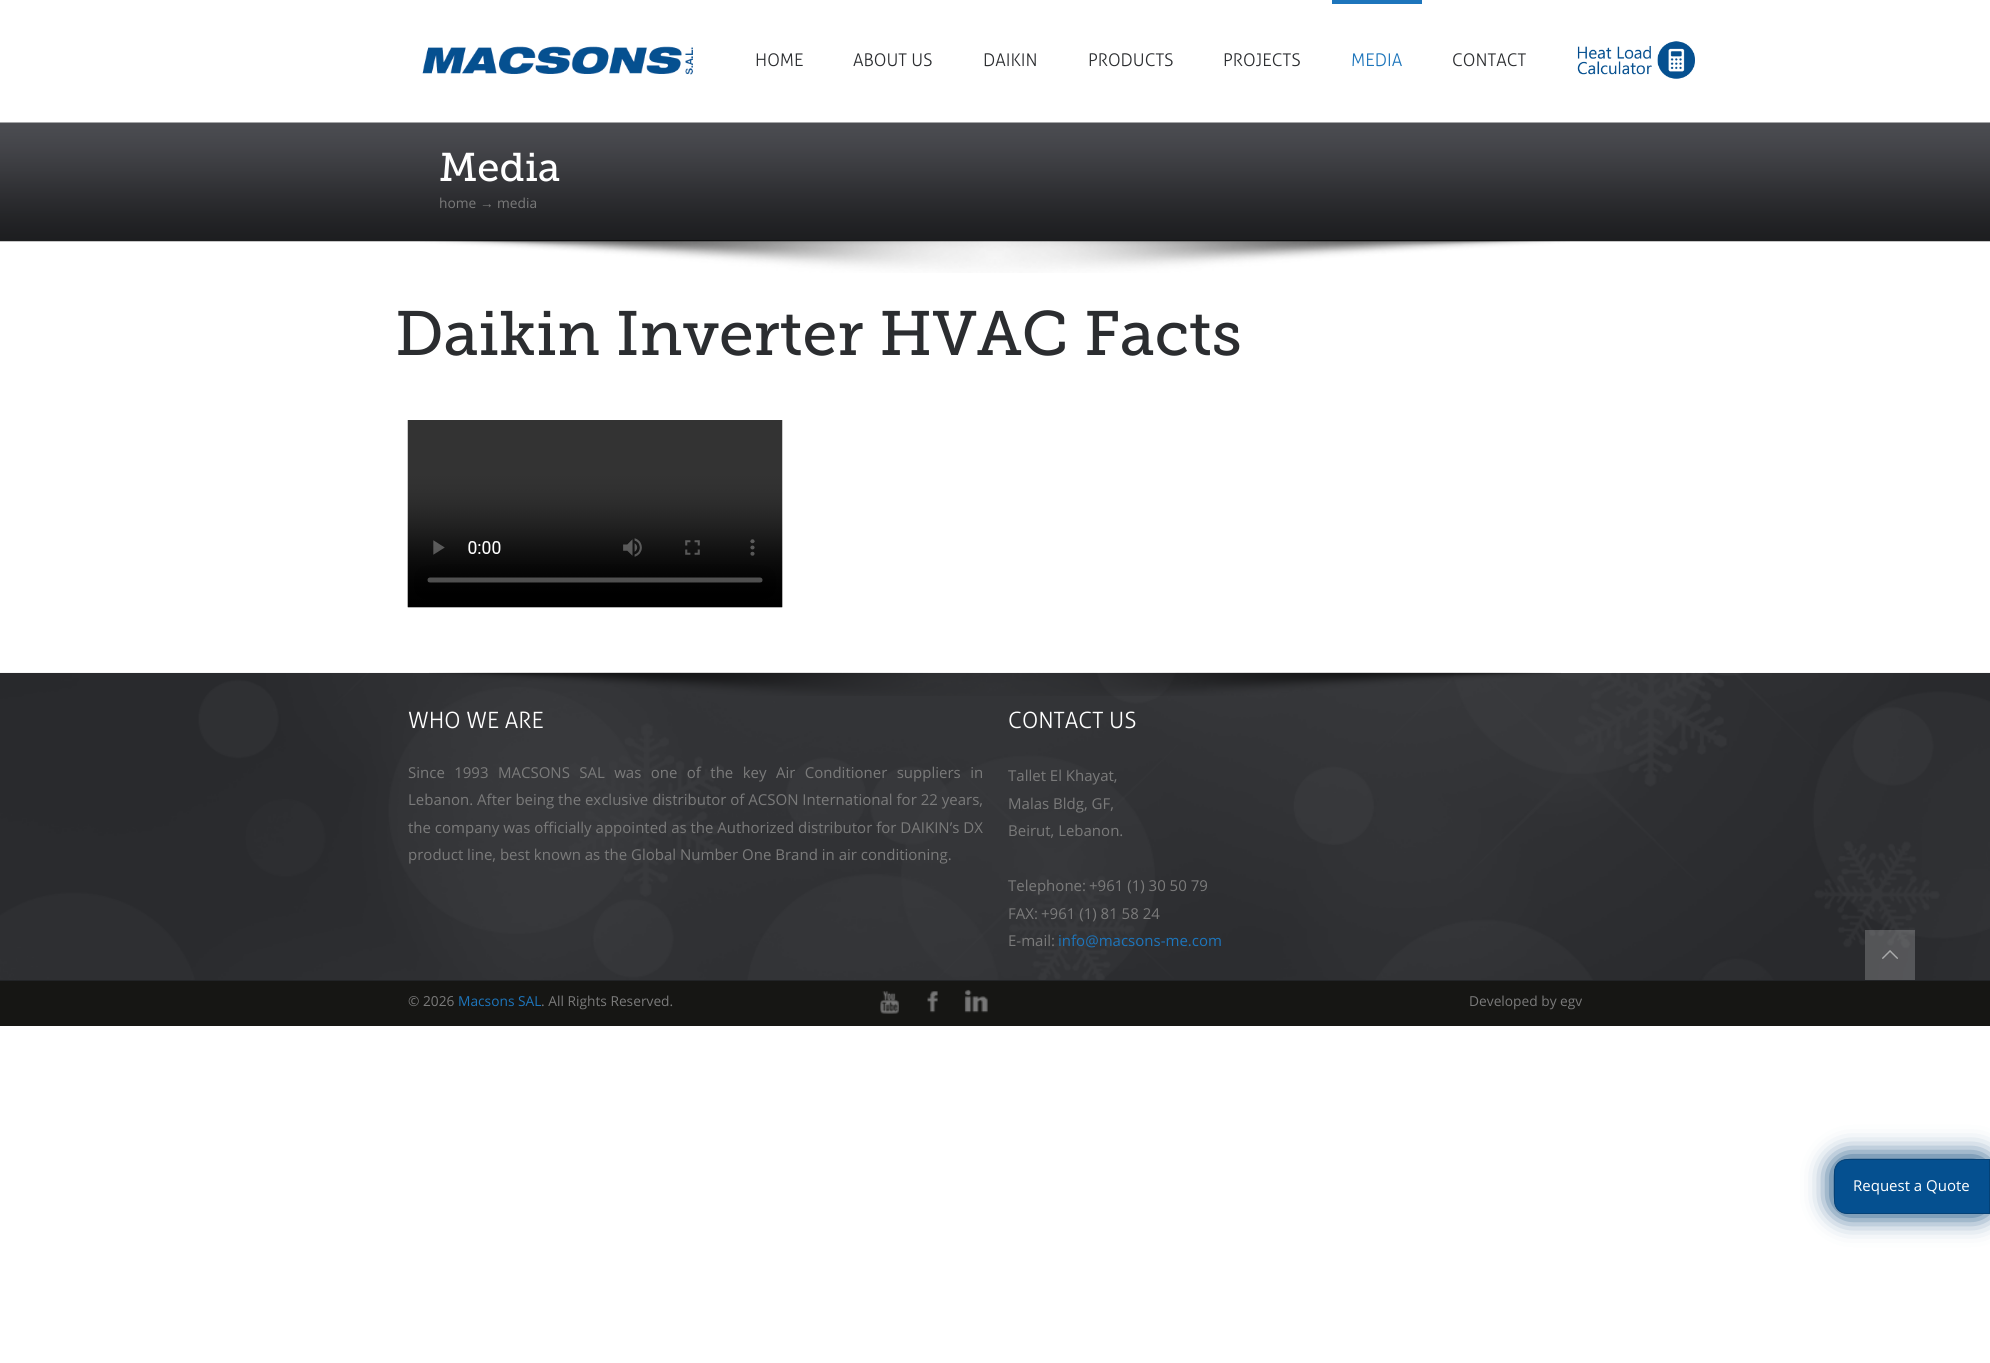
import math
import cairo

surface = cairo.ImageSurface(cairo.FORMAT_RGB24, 1990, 1363)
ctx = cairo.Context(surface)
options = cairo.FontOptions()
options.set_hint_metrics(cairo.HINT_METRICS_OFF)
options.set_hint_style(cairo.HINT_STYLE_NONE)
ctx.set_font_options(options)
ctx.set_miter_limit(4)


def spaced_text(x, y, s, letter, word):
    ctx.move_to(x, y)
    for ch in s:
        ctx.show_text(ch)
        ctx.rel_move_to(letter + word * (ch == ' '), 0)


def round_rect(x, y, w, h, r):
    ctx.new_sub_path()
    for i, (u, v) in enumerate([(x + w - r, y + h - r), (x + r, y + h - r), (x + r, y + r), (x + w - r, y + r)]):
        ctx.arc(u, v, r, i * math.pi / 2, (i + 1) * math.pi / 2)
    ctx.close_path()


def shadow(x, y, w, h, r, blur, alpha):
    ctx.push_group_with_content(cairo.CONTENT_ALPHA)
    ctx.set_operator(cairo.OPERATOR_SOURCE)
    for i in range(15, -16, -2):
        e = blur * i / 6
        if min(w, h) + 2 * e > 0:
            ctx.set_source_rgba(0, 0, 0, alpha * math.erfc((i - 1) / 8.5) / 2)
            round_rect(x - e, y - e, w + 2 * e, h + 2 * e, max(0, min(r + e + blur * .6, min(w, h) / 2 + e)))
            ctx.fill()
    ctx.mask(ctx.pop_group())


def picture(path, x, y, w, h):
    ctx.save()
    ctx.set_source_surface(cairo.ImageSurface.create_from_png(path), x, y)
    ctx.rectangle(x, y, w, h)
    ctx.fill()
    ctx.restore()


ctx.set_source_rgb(1, 1, 1)
ctx.paint()
picture("img1.png", 422, 46, 271, 29)
ctx.select_font_face("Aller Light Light")
ctx.set_font_size(17.5)
ctx.set_source_rgb(0.169, 0.176, 0.188)
ctx.move_to(755, 66)
ctx.show_text("HOME")
ctx.move_to(853, 66)
ctx.show_text("ABOUT US")
ctx.move_to(983, 66)
ctx.show_text("DAIKIN")
ctx.move_to(1088, 66)
ctx.show_text("PRODUCTS")
ctx.move_to(1223, 66)
ctx.show_text("PROJECTS")
ctx.set_source_rgb(0.114, 0.459, 0.737)
ctx.rectangle(1332, 0, 90, 4)
ctx.fill()
ctx.set_source_rgb(0.114, 0.459, 0.733)
ctx.move_to(1351, 66)
ctx.show_text("MEDIA")
ctx.set_source_rgb(0.169, 0.176, 0.188)
ctx.move_to(1452, 66)
ctx.show_text("CONTACT")
picture("img2.png", 1577, 41, 118, 38)
picture("img3.png", 0, 122, 1990, 120)
ctx.select_font_face("Museo Slab")
ctx.set_font_size(40)
ctx.set_source_rgb(1, 1, 1)
ctx.move_to(439, 181)
ctx.show_text("Media")
ctx.select_font_face("Open Sans")
ctx.set_font_size(13.75)
ctx.set_source_rgb(0.478, 0.478, 0.478)
ctx.move_to(439, 208)
ctx.show_text("home")
ctx.select_font_face("Liberation Serif")
ctx.move_to(480, 208)
ctx.show_text("→")
ctx.select_font_face("Open Sans")
ctx.move_to(497, 208)
ctx.show_text("media")
picture("img4.png", 420, 240, 1150, 33)
ctx.select_font_face("Museo Slab")
ctx.set_font_size(62.5)
ctx.set_source_rgb(0.169, 0.176, 0.188)
ctx.move_to(395, 355)
ctx.show_text("Daikin Inverter HVAC Facts")
picture("img5.png", 407, 420, 376, 188)
ctx.rectangle(0, 673, 1990, 307)
ctx.fill()
picture("img6.png", 0, 672, 1990, 308)
ctx.set_source_rgb(0.133, 0.141, 0.153)
ctx.rectangle(0, 980, 1990, 1)
ctx.fill()
picture("img7.png", 429, 672, 1132, 24)
ctx.select_font_face("Aller Light Light")
ctx.set_font_size(22.5)
ctx.set_source_rgb(1, 1, 1)
ctx.move_to(408, 728)
ctx.show_text("WHO WE ARE")
ctx.select_font_face("Open Sans")
ctx.set_font_size(15)
ctx.set_source_rgb(0.478, 0.478, 0.478)
spaced_text(408, 778, "Since 1993 MACSONS SAL was one of the key Air Conditioner suppliers in", 0, 5.5)
ctx.move_to(408, 805)
ctx.show_text("Lebanon. After being the exclusive distributor of ACSON International for 22 years,")
ctx.move_to(408, 833)
ctx.show_text("the company was officially appointed as the Authorized distributor for DAIKIN’s DX")
ctx.move_to(408, 860)
ctx.show_text("product line, best known as the Global Number One Brand in air conditioning.")
ctx.select_font_face("Aller Light Light")
ctx.set_font_size(22.5)
ctx.set_source_rgb(1, 1, 1)
ctx.move_to(1008, 728)
ctx.show_text("CONTACT US")
ctx.select_font_face("Open Sans")
ctx.set_font_size(15)
ctx.set_source_rgb(0.478, 0.478, 0.478)
ctx.move_to(1008, 781)
ctx.show_text("Tallet El Khayat,")
ctx.move_to(1008, 809)
ctx.show_text("Malas Bldg, GF,")
ctx.move_to(1008, 836)
ctx.show_text("Beirut, Lebanon.")
ctx.move_to(1008, 891)
ctx.show_text("Telephone:")
ctx.move_to(1089, 891)
ctx.show_text("+961 (1) 30 50 79")
ctx.move_to(1008, 919)
ctx.show_text("FAX:")
ctx.move_to(1041, 919)
ctx.show_text("+961 (1) 81 58 24")
ctx.move_to(1008, 946)
ctx.show_text("E-mail:")
ctx.set_source_rgb(0.114, 0.459, 0.733)
ctx.move_to(1058, 946)
ctx.show_text("info@macsons-me.com")
picture("img8.png", 1865, 930, 50, 50)
ctx.set_source_rgb(0.086, 0.086, 0.082)
ctx.rectangle(0, 981, 1990, 45)
ctx.fill()
ctx.set_font_size(13.75)
ctx.set_source_rgb(0.478, 0.478, 0.478)
ctx.move_to(408, 1006)
ctx.show_text("© 2026")
ctx.set_source_rgb(0.114, 0.459, 0.733)
ctx.move_to(458, 1006)
ctx.show_text("Macsons SAL")
ctx.set_source_rgb(0.478, 0.478, 0.478)
ctx.move_to(541, 1006)
ctx.show_text(". All Rights Reserved.")
picture("img9.png", 880, 991, 19, 23)
picture("img10.png", 927, 991, 11, 22)
picture("img11.png", 964, 989, 24, 24)
ctx.move_to(1469, 1006)
ctx.show_text("Developed by")
ctx.move_to(1560, 1006)
ctx.show_text("egv")
ctx.set_source_rgb(0.016, 0.255, 0.463)
shadow(1831, 1156, 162, 60, 15, 12.5, 1)
ctx.set_source_rgb(0.02, 0.314, 0.565)
ctx.new_path()
ctx.move_to(1847, 1159.5)
ctx.line_to(1989.5, 1159.5)
ctx.line_to(1989.5, 1213.5)
ctx.line_to(1847, 1213.5)
ctx.curve_to(1840, 1213.5, 1834.5, 1208, 1834.5, 1201)
ctx.line_to(1834.5, 1172)
ctx.curve_to(1834.5, 1165, 1840, 1159.5, 1847, 1159.5)
ctx.close_path()
ctx.fill_preserve()
ctx.set_source_rgb(0.016, 0.255, 0.463)
ctx.set_line_width(1)
ctx.stroke()
ctx.set_font_size(15)
ctx.set_source_rgb(1, 1, 1)
ctx.move_to(1853, 1191)
ctx.show_text("Request a Quote")
surface.write_to_png("page.png")
